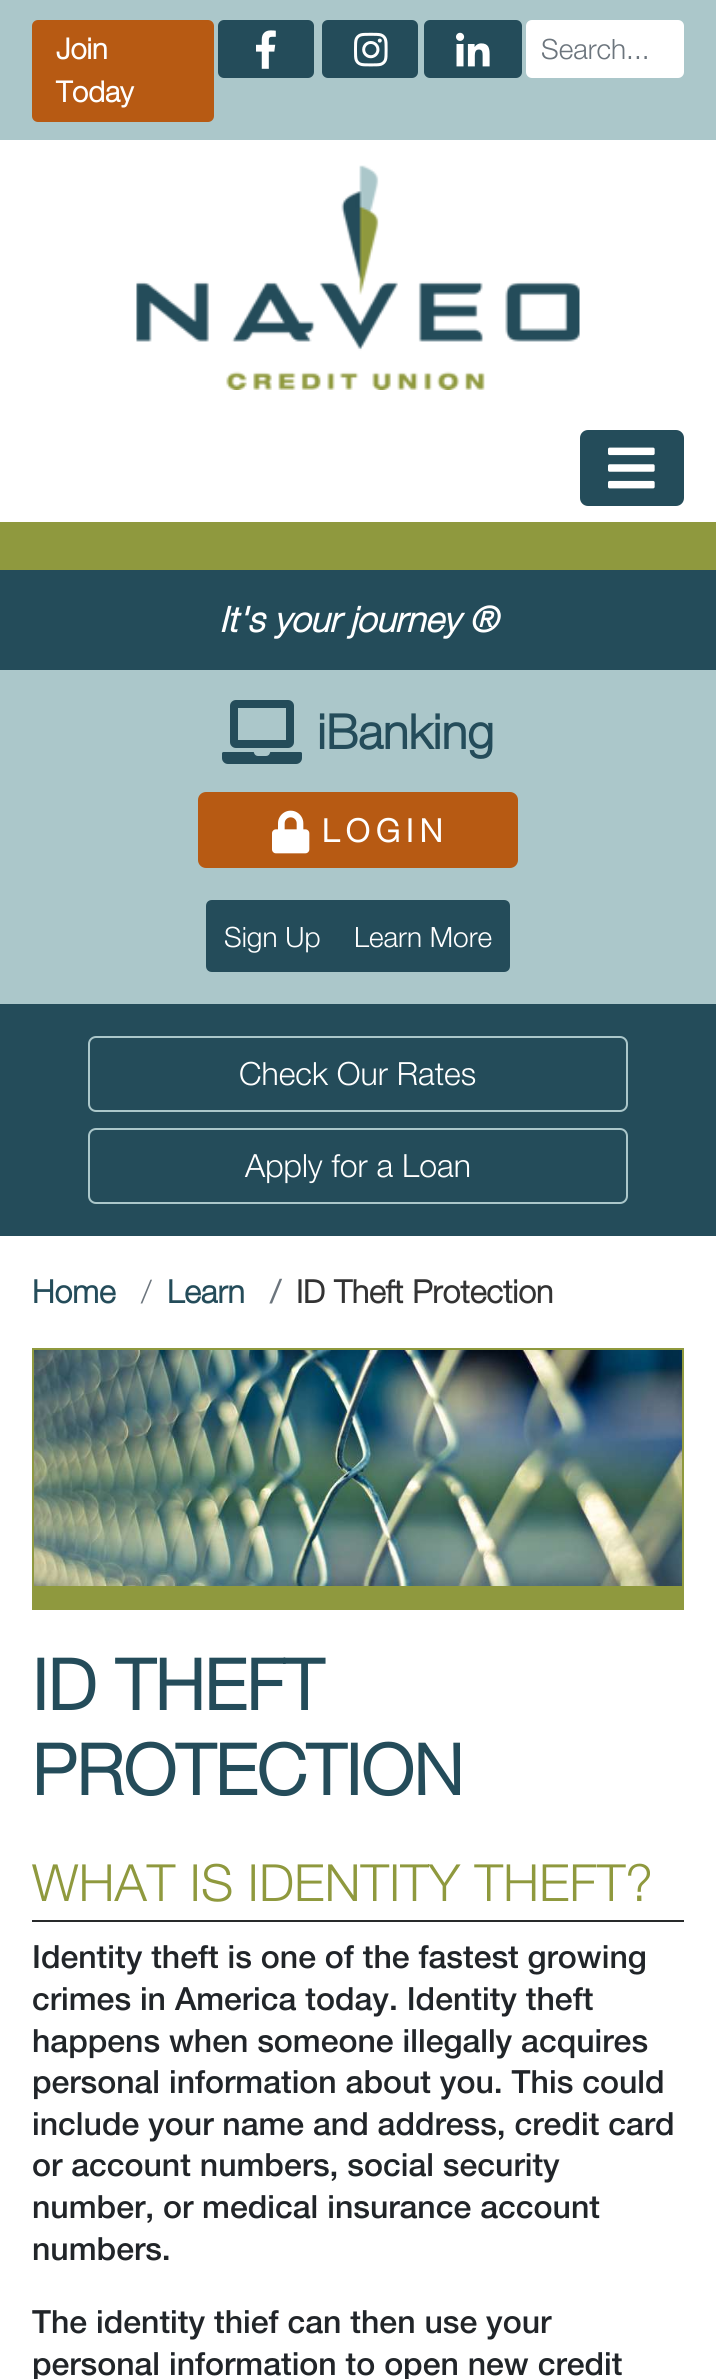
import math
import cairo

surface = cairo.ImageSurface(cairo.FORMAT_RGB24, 716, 2379)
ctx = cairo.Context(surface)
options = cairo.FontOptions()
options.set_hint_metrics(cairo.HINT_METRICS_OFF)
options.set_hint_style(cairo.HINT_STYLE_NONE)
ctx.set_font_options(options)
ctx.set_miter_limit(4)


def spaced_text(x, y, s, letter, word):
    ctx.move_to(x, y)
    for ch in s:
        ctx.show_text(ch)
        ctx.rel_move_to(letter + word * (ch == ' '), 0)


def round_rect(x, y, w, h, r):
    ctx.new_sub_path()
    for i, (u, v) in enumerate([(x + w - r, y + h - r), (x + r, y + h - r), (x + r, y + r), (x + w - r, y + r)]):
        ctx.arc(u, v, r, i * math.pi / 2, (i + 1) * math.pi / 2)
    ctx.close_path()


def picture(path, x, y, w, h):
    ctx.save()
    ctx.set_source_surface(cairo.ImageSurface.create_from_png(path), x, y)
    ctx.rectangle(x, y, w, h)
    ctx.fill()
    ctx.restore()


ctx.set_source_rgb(1, 1, 1)
ctx.paint()
ctx.set_source_rgb(0.671, 0.78, 0.792)
ctx.rectangle(0, 0, 716, 140)
ctx.fill()
ctx.set_source_rgb(0.718, 0.353, 0.075)
round_rect(32, 20, 182, 102, 6)
ctx.fill()
ctx.select_font_face("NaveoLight", cairo.FONT_SLANT_NORMAL, cairo.FONT_WEIGHT_BOLD)
ctx.set_font_size(29)
ctx.set_source_rgb(1, 1, 1)
ctx.move_to(56, 59)
ctx.show_text("Join")
ctx.move_to(56, 102)
ctx.show_text("Today")
ctx.set_source_rgb(0.141, 0.298, 0.353)
round_rect(218, 20, 96, 58, 6)
ctx.fill()
picture("img1.png", 256, 30, 20, 39)
round_rect(322, 20, 96, 58, 6)
ctx.fill()
picture("img2.png", 354, 32, 34, 35)
round_rect(424, 20, 98, 58, 6)
ctx.fill()
picture("img3.png", 456, 32, 34, 35)
ctx.set_source_rgb(1, 1, 1)
round_rect(526, 20, 158, 58, 6)
ctx.fill()
ctx.select_font_face("NaveoLight Light")
ctx.set_font_size(28)
ctx.set_source_rgb(0.424, 0.459, 0.49)
ctx.move_to(541, 59)
ctx.show_text("Search...")
picture("img4.png", 136, 165, 444, 225)
ctx.set_source_rgb(0.141, 0.298, 0.353)
round_rect(581, 431, 102, 74, 7)
ctx.fill_preserve()
ctx.stroke()
picture("img5.png", 608, 447, 47, 42)
ctx.set_source_rgb(0.561, 0.6, 0.243)
ctx.rectangle(0, 522, 716, 48)
ctx.fill()
ctx.set_source_rgb(0.141, 0.298, 0.353)
ctx.rectangle(0, 570, 716, 100)
ctx.fill()
ctx.select_font_face("NaveoLight", cairo.FONT_SLANT_ITALIC, cairo.FONT_WEIGHT_BOLD)
ctx.set_font_size(35.25)
ctx.set_source_rgb(1, 1, 1)
ctx.move_to(219, 632)
ctx.show_text("It's your journey ®")
ctx.set_source_rgb(0.671, 0.78, 0.792)
ctx.rectangle(0, 670, 716, 334)
ctx.fill()
picture("img6.png", 222, 700, 80, 64)
ctx.select_font_face("NaveoLight", cairo.FONT_SLANT_NORMAL, cairo.FONT_WEIGHT_BOLD)
ctx.set_font_size(48)
ctx.set_source_rgb(0.141, 0.298, 0.353)
ctx.move_to(317, 749)
ctx.show_text("iBanking")
ctx.set_source_rgb(0.718, 0.353, 0.075)
round_rect(199, 793, 318, 74, 7)
ctx.fill_preserve()
ctx.stroke()
picture("img7.png", 272, 810, 38, 44)
ctx.set_font_size(32)
ctx.set_source_rgb(1, 1, 1)
spaced_text(322, 842, "LOGIN", 6.5, 0)
ctx.set_source_rgb(0.141, 0.298, 0.353)
ctx.new_path()
ctx.move_to(212, 901)
ctx.line_to(337, 901)
ctx.line_to(337, 971)
ctx.line_to(212, 971)
ctx.curve_to(209, 971, 207, 969, 207, 966)
ctx.line_to(207, 906)
ctx.curve_to(207, 903, 209, 901, 212, 901)
ctx.close_path()
ctx.fill_preserve()
ctx.stroke()
ctx.select_font_face("NaveoLight Light")
ctx.set_font_size(28)
ctx.set_source_rgb(1, 1, 1)
ctx.move_to(224, 947)
ctx.show_text("Sign Up")
ctx.set_source_rgb(0.141, 0.298, 0.353)
ctx.new_path()
ctx.move_to(337, 901)
ctx.line_to(504, 901)
ctx.curve_to(507, 901, 509, 903, 509, 906)
ctx.line_to(509, 966)
ctx.curve_to(509, 969, 507, 971, 504, 971)
ctx.line_to(337, 971)
ctx.close_path()
ctx.fill_preserve()
ctx.stroke()
ctx.set_source_rgb(1, 1, 1)
ctx.move_to(354, 947)
ctx.show_text("Learn More")
ctx.set_source_rgb(0.141, 0.298, 0.353)
ctx.rectangle(0, 1004, 716, 232)
ctx.fill()
round_rect(89, 1037, 538, 74, 7)
ctx.set_source_rgb(0.671, 0.78, 0.792)
ctx.stroke()
ctx.set_font_size(32)
ctx.set_source_rgb(1, 1, 1)
ctx.move_to(239, 1085)
ctx.show_text("Check Our Rates")
round_rect(89, 1129, 538, 74, 7)
ctx.set_source_rgb(0.671, 0.78, 0.792)
ctx.stroke()
ctx.set_source_rgb(1, 1, 1)
ctx.move_to(245, 1177)
ctx.show_text("Apply for a Loan")
ctx.select_font_face("NaveoLight", cairo.FONT_SLANT_NORMAL, cairo.FONT_WEIGHT_BOLD)
ctx.set_source_rgb(0.141, 0.298, 0.353)
ctx.move_to(32, 1303)
ctx.show_text("Home")
ctx.select_font_face("NaveoLight Light")
ctx.set_source_rgb(0.424, 0.459, 0.49)
ctx.move_to(141, 1303)
ctx.show_text("/")
ctx.select_font_face("NaveoLight", cairo.FONT_SLANT_NORMAL, cairo.FONT_WEIGHT_BOLD)
ctx.set_source_rgb(0.141, 0.298, 0.353)
ctx.move_to(167, 1303)
ctx.show_text("Learn")
ctx.set_source_rgb(0.424, 0.459, 0.49)
ctx.move_to(270, 1303)
ctx.show_text("/")
ctx.set_source_rgb(0.2, 0.2, 0.2)
ctx.move_to(296, 1303)
ctx.show_text("ID Theft Protection")
ctx.set_source_rgb(0.561, 0.6, 0.243)
ctx.rectangle(32, 1348, 652, 2)
ctx.fill()
ctx.rectangle(682, 1348, 2, 238)
ctx.fill()
ctx.rectangle(34, 1586, 650, 24)
ctx.fill()
ctx.rectangle(32, 1348, 2, 262)
ctx.fill()
picture("img8.png", 34, 1350, 648, 236)
ctx.set_font_size(70.5)
ctx.set_source_rgb(0.141, 0.298, 0.353)
ctx.move_to(32, 1710)
ctx.show_text("ID THEFT")
ctx.move_to(32, 1795)
ctx.show_text("PROTECTION")
ctx.set_source_rgb(0.157, 0.165, 0.169)
ctx.rectangle(32, 1920, 652, 2)
ctx.fill()
ctx.select_font_face("NaveoLight Light")
ctx.set_font_size(51.25)
ctx.set_source_rgb(0.561, 0.6, 0.243)
ctx.move_to(32, 1901)
ctx.show_text("WHAT IS IDENTITY THEFT?")
ctx.select_font_face("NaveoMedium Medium")
ctx.set_font_size(32)
ctx.set_source_rgb(0.129, 0.145, 0.161)
ctx.move_to(32, 1968)
ctx.show_text("Identity theft is one of the fastest growing")
ctx.move_to(32, 2010)
ctx.show_text("crimes in America today. Identity theft")
ctx.move_to(32, 2052)
ctx.show_text("happens when someone illegally acquires")
ctx.move_to(32, 2093)
ctx.show_text("personal information about you. This could")
ctx.move_to(32, 2135)
ctx.show_text("include your name and address, credit card")
ctx.move_to(32, 2176)
ctx.show_text("or account numbers, social security")
ctx.move_to(32, 2218)
ctx.show_text("number, or medical insurance account")
ctx.move_to(32, 2260)
ctx.show_text("numbers.")
ctx.move_to(32, 2333)
ctx.show_text("The identity thief can then use your")
ctx.move_to(32, 2375)
ctx.show_text("personal information to open new credit")
surface.write_to_png("page.png")
